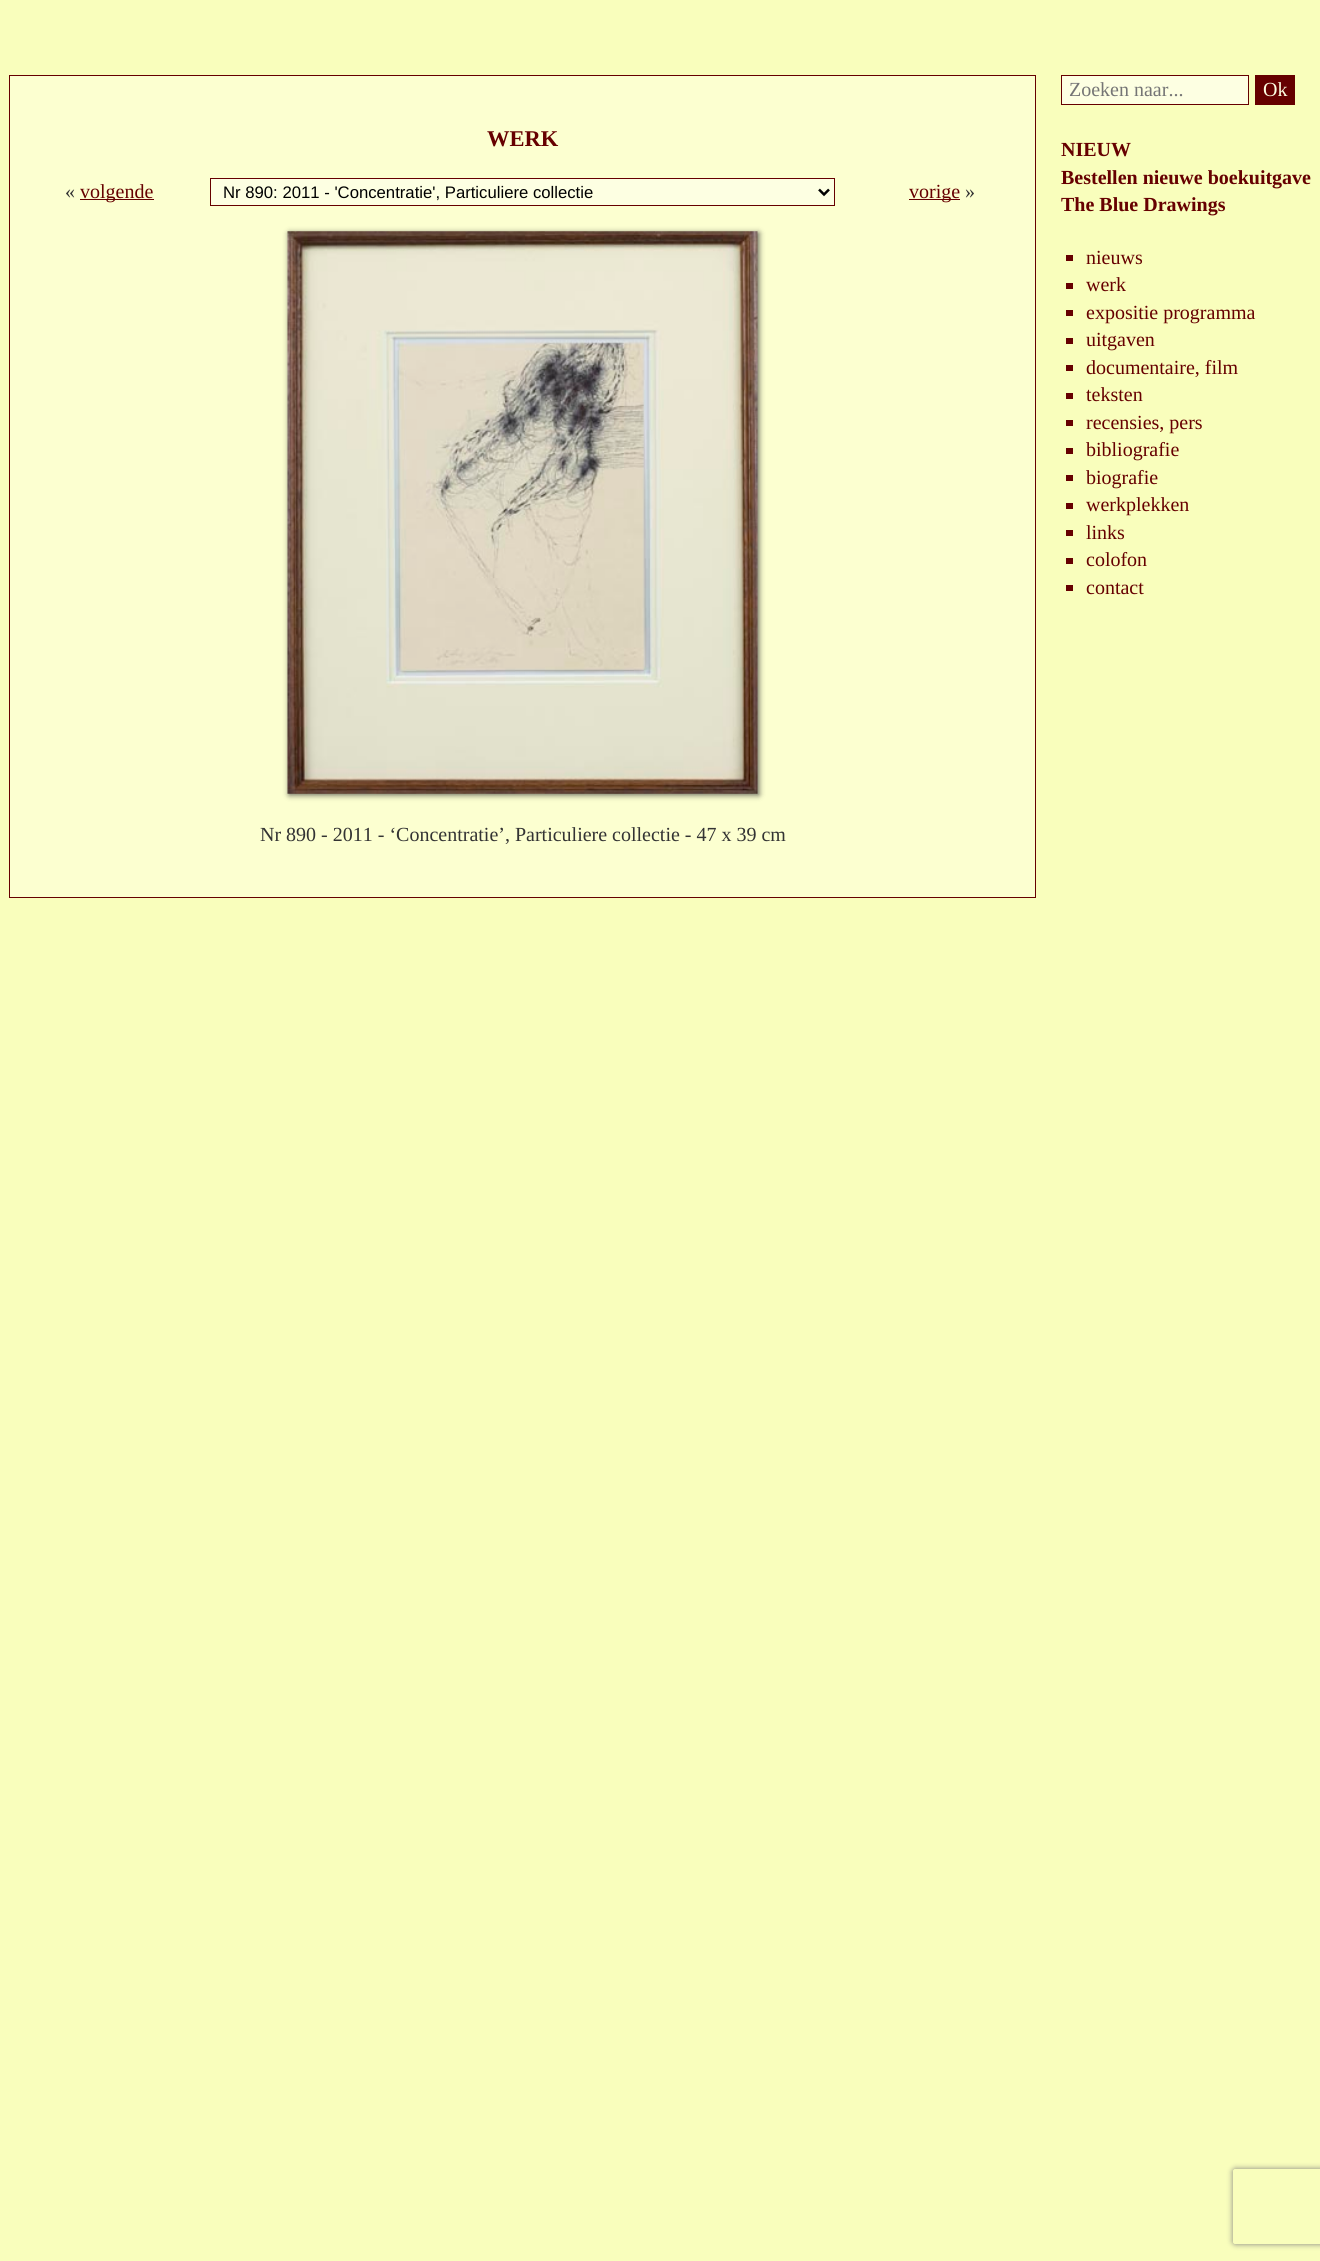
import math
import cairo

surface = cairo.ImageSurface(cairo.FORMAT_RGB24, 1320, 2261)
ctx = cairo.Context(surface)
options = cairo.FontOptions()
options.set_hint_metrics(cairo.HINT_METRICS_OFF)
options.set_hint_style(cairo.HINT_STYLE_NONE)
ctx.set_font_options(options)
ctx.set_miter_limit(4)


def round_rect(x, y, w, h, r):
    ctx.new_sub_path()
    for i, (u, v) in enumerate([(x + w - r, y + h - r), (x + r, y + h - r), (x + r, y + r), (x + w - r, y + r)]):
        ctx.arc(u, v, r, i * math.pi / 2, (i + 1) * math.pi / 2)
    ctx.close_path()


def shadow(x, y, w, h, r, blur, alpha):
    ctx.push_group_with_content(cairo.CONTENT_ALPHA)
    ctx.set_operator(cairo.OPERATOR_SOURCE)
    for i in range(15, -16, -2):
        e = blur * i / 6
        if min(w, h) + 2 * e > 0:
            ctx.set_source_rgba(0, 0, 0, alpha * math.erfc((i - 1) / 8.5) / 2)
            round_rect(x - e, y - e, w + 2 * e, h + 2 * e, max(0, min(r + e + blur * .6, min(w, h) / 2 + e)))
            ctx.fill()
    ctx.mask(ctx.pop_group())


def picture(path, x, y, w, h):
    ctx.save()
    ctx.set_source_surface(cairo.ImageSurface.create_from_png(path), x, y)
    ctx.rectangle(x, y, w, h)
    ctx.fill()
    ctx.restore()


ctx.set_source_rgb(0.976, 0.996, 0.737)
ctx.paint()
ctx.set_source_rgb(0.988, 1, 0.816)
ctx.rectangle(9.5, 75.5, 1026, 822)
ctx.fill_preserve()
ctx.set_source_rgb(0.4, 0, 0)
ctx.set_line_width(1)
ctx.stroke()
ctx.select_font_face("Liberation Serif", cairo.FONT_SLANT_NORMAL, cairo.FONT_WEIGHT_BOLD)
ctx.set_font_size(22.5)
ctx.move_to(487, 146)
ctx.show_text("WERK")
ctx.select_font_face("Liberation Serif")
ctx.set_font_size(20)
ctx.set_source_rgb(0.2, 0.2, 0.2)
ctx.move_to(65, 198)
ctx.show_text("«")
ctx.set_source_rgb(0.4, 0, 0)
ctx.rectangle(80, 199, 74, 1)
ctx.fill()
ctx.move_to(80, 198)
ctx.show_text("volgende")
ctx.set_source_rgb(0.992, 1, 0.886)
ctx.rectangle(210.5, 178.5, 624, 27)
ctx.fill_preserve()
ctx.set_source_rgb(0.4, 0, 0)
ctx.stroke()
ctx.new_path()
ctx.move_to(819, 189.5)
ctx.line_to(824, 194.5)
ctx.line_to(829, 189.5)
ctx.set_source_rgb(0, 0, 0)
ctx.set_line_width(2.5)
ctx.stroke()
ctx.select_font_face("Liberation Sans")
ctx.set_font_size(16.7)
ctx.move_to(223, 198)
ctx.show_text("Nr 890: 2011 - 'Concentratie', Particuliere collectie")
ctx.set_source_rgb(0.4, 0, 0)
ctx.rectangle(909, 199, 51, 1)
ctx.fill()
ctx.select_font_face("Liberation Serif")
ctx.set_font_size(20)
ctx.move_to(909, 198)
ctx.show_text("vorige")
ctx.set_source_rgb(0.2, 0.2, 0.2)
ctx.move_to(965, 198)
ctx.show_text("»")
ctx.set_source_rgb(0.196, 0.196, 0.196)
shadow(289, 233, 470, 562, 0, 3, 0.75)
picture("img1.png", 287, 231, 471, 563)
ctx.set_source_rgb(0.2, 0.2, 0.2)
ctx.move_to(260, 841)
ctx.show_text("Nr 890 - 2011 - ‘Concentratie’, Particuliere collectie - 47 x 39 cm")
ctx.set_source_rgb(0.992, 1, 0.886)
ctx.rectangle(1061.5, 75.5, 187, 29)
ctx.fill_preserve()
ctx.set_source_rgb(0.4, 0, 0)
ctx.set_line_width(1)
ctx.stroke()
ctx.set_source_rgb(0.459, 0.459, 0.459)
ctx.move_to(1069, 96)
ctx.show_text("Zoeken naar...")
ctx.set_source_rgb(0.4, 0, 0)
ctx.rectangle(1255, 75, 40, 30)
ctx.fill()
ctx.set_source_rgb(0.992, 1, 0.886)
ctx.move_to(1263, 96)
ctx.show_text("Ok")
ctx.select_font_face("Liberation Serif", cairo.FONT_SLANT_NORMAL, cairo.FONT_WEIGHT_BOLD)
ctx.set_source_rgb(0.4, 0, 0)
ctx.move_to(1061, 156)
ctx.show_text("NIEUW")
ctx.move_to(1061, 184)
ctx.show_text("Bestellen nieuwe boekuitgave")
ctx.move_to(1061, 211)
ctx.show_text("The Blue Drawings")
ctx.rectangle(1066, 255, 7, 6)
ctx.fill()
ctx.select_font_face("Liberation Serif")
ctx.move_to(1086, 264)
ctx.show_text("nieuws")
ctx.rectangle(1066, 283, 7, 6)
ctx.fill()
ctx.move_to(1086, 291)
ctx.show_text("werk")
ctx.rectangle(1066, 310, 7, 6)
ctx.fill()
ctx.move_to(1086, 319)
ctx.show_text("expositie programma")
ctx.rectangle(1066, 338, 7, 6)
ctx.fill()
ctx.move_to(1086, 346)
ctx.show_text("uitgaven")
ctx.rectangle(1066, 365, 7, 6)
ctx.fill()
ctx.move_to(1086, 374)
ctx.show_text("documentaire, film")
ctx.rectangle(1066, 393, 7, 6)
ctx.fill()
ctx.move_to(1086, 401)
ctx.show_text("teksten")
ctx.rectangle(1066, 420, 7, 6)
ctx.fill()
ctx.move_to(1086, 429)
ctx.show_text("recensies, pers")
ctx.rectangle(1066, 448, 7, 6)
ctx.fill()
ctx.move_to(1086, 456)
ctx.show_text("bibliografie")
ctx.rectangle(1066, 475, 7, 6)
ctx.fill()
ctx.move_to(1086, 484)
ctx.show_text("biografie")
ctx.rectangle(1066, 503, 7, 6)
ctx.fill()
ctx.move_to(1086, 511)
ctx.show_text("werkplekken")
ctx.rectangle(1066, 530, 7, 6)
ctx.fill()
ctx.move_to(1086, 539)
ctx.show_text("links")
ctx.rectangle(1066, 558, 7, 6)
ctx.fill()
ctx.move_to(1086, 566)
ctx.show_text("colofon")
ctx.rectangle(1066, 585, 7, 6)
ctx.fill()
ctx.move_to(1086, 594)
ctx.show_text("contact")
ctx.save()
ctx.set_fill_rule(cairo.FILL_RULE_EVEN_ODD)
ctx.new_path()
ctx.move_to(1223, 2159)
ctx.line_to(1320, 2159)
ctx.line_to(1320, 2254)
ctx.line_to(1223, 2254)
ctx.close_path()
ctx.move_to(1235.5, 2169)
ctx.line_to(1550.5, 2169)
ctx.curve_to(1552, 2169, 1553, 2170, 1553, 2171.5)
ctx.line_to(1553, 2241.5)
ctx.curve_to(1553, 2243, 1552, 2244, 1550.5, 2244)
ctx.line_to(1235.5, 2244)
ctx.curve_to(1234, 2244, 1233, 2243, 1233, 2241.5)
ctx.line_to(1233, 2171.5)
ctx.curve_to(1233, 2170, 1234, 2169, 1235.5, 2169)
ctx.close_path()
ctx.clip()
ctx.set_source_rgb(0.502, 0.502, 0.502)
shadow(1233, 2169, 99, 75, 2.5, 3, 1)
ctx.restore()
surface.write_to_png("page.png")
